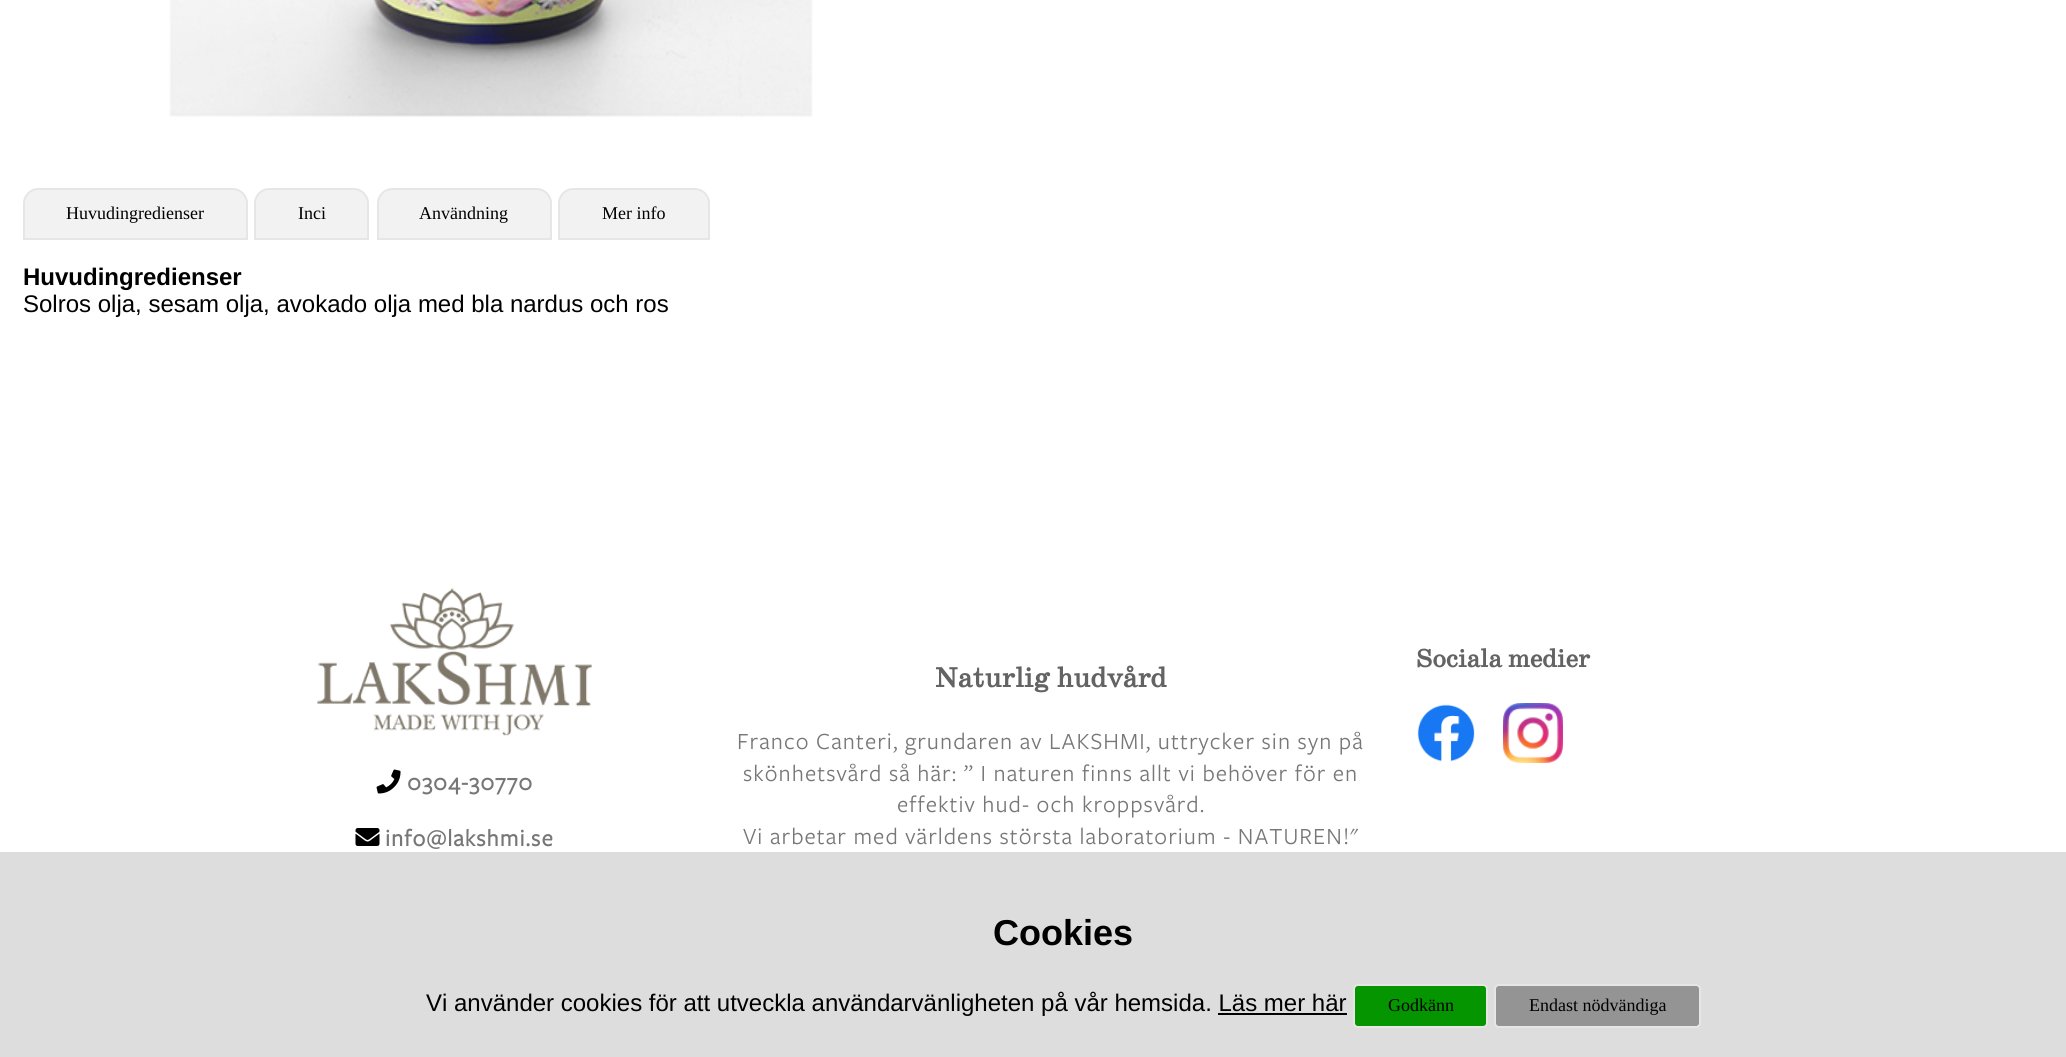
import math
import cairo

surface = cairo.ImageSurface(cairo.FORMAT_RGB24, 2066, 1057)
ctx = cairo.Context(surface)
options = cairo.FontOptions()
options.set_hint_metrics(cairo.HINT_METRICS_OFF)
options.set_hint_style(cairo.HINT_STYLE_NONE)
ctx.set_font_options(options)
ctx.set_miter_limit(4)


def spaced_text(x, y, s, letter, word):
    ctx.move_to(x, y)
    for ch in s:
        ctx.show_text(ch)
        ctx.rel_move_to(letter + word * (ch == ' '), 0)


def round_rect(x, y, w, h, r):
    ctx.new_sub_path()
    for i, (u, v) in enumerate([(x + w - r, y + h - r), (x + r, y + h - r), (x + r, y + r), (x + w - r, y + r)]):
        ctx.arc(u, v, r, i * math.pi / 2, (i + 1) * math.pi / 2)
    ctx.close_path()


def picture(path, x, y, w, h):
    ctx.save()
    ctx.set_source_surface(cairo.ImageSurface.create_from_png(path), x, y)
    ctx.rectangle(x, y, w, h)
    ctx.fill()
    ctx.restore()


ctx.set_source_rgb(1, 1, 1)
ctx.paint()
picture("img1.png", 169, 0, 644, 117)
ctx.set_source_rgb(0.949, 0.949, 0.949)
ctx.new_path()
ctx.move_to(38, 189)
ctx.line_to(233, 189)
ctx.curve_to(240.5, 189, 247, 195.5, 247, 203)
ctx.line_to(247, 239)
ctx.line_to(24, 239)
ctx.line_to(24, 203)
ctx.curve_to(24, 195.5, 30.5, 189, 38, 189)
ctx.close_path()
ctx.fill_preserve()
ctx.set_source_rgb(0.902, 0.902, 0.902)
ctx.stroke()
ctx.select_font_face("Liberation Serif")
ctx.set_font_size(18)
ctx.set_source_rgb(0, 0, 0)
ctx.move_to(66, 219)
ctx.show_text("Huvudingredienser")
ctx.set_source_rgb(0.949, 0.949, 0.949)
ctx.new_path()
ctx.move_to(269, 189)
ctx.line_to(354, 189)
ctx.curve_to(361.5, 189, 368, 195.5, 368, 203)
ctx.line_to(368, 239)
ctx.line_to(255, 239)
ctx.line_to(255, 203)
ctx.curve_to(255, 195.5, 261.5, 189, 269, 189)
ctx.close_path()
ctx.fill_preserve()
ctx.set_source_rgb(0.902, 0.902, 0.902)
ctx.stroke()
ctx.set_source_rgb(0, 0, 0)
ctx.move_to(298, 219)
ctx.show_text("Inci")
ctx.set_source_rgb(0.949, 0.949, 0.949)
ctx.new_path()
ctx.move_to(392, 189)
ctx.line_to(537, 189)
ctx.curve_to(544.5, 189, 551, 195.5, 551, 203)
ctx.line_to(551, 239)
ctx.line_to(378, 239)
ctx.line_to(378, 203)
ctx.curve_to(378, 195.5, 384.5, 189, 392, 189)
ctx.close_path()
ctx.fill_preserve()
ctx.set_source_rgb(0.902, 0.902, 0.902)
ctx.stroke()
ctx.set_source_rgb(0, 0, 0)
ctx.move_to(419, 219)
ctx.show_text("Användning")
ctx.set_source_rgb(0.949, 0.949, 0.949)
ctx.new_path()
ctx.move_to(573, 189)
ctx.line_to(695, 189)
ctx.curve_to(702.5, 189, 709, 195.5, 709, 203)
ctx.line_to(709, 239)
ctx.line_to(559, 239)
ctx.line_to(559, 203)
ctx.curve_to(559, 195.5, 565.5, 189, 573, 189)
ctx.close_path()
ctx.fill_preserve()
ctx.set_source_rgb(0.902, 0.902, 0.902)
ctx.stroke()
ctx.set_source_rgb(0, 0, 0)
ctx.move_to(602, 219)
ctx.show_text("Mer info")
ctx.select_font_face("Liberation Sans", cairo.FONT_SLANT_NORMAL, cairo.FONT_WEIGHT_BOLD)
ctx.set_font_size(24)
ctx.move_to(23, 285)
ctx.show_text("Huvudingredienser")
ctx.select_font_face("Liberation Sans")
ctx.move_to(23, 312)
ctx.show_text("Solros olja, sesam olja, avokado olja med bla nardus och ros")
ctx.select_font_face("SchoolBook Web", cairo.FONT_SLANT_NORMAL, cairo.FONT_WEIGHT_BOLD)
ctx.set_font_size(25.5)
ctx.set_source_rgb(0.388, 0.388, 0.388)
ctx.move_to(1416, 667)
ctx.show_text("Sociala medier")
picture("img2.png", 1417, 704, 58, 58)
picture("img3.png", 1503, 703, 60, 60)
picture("img4.png", 317, 588, 275, 148)
picture("img5.png", 376, 769, 25, 25)
ctx.select_font_face("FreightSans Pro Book", cairo.FONT_SLANT_NORMAL, cairo.FONT_WEIGHT_BOLD)
ctx.set_font_size(24)
ctx.set_source_rgb(0.467, 0.467, 0.467)
spaced_text(407, 790, "0304-30770", 1.05, 0)
picture("img6.png", 355, 828, 25, 18)
spaced_text(385, 846, "info@lakshmi.se", 1.05, 0)
ctx.select_font_face("SchoolBook Web", cairo.FONT_SLANT_NORMAL, cairo.FONT_WEIGHT_BOLD)
ctx.set_font_size(28)
ctx.set_source_rgb(0.388, 0.388, 0.388)
ctx.move_to(935, 687)
ctx.show_text("Naturlig hudvård")
ctx.select_font_face("FreightSans Pro Book")
ctx.set_font_size(24)
ctx.set_source_rgb(0.467, 0.467, 0.467)
spaced_text(737, 749, "Franco Canteri, grundaren av LAKSHMI, uttrycker sin syn på", 1.05, 0)
spaced_text(743, 781, "skönhetsvård så här: ” I naturen finns allt vi behöver för en", 1.05, 0)
spaced_text(897, 812, "effektiv hud- och kroppsvård.", 1.05, 0)
spaced_text(743, 844, "Vi arbetar med världens största laboratorium - NATUREN!\"", 1.05, 0)
ctx.set_source_rgb(0.867, 0.867, 0.867)
ctx.rectangle(0, 852, 2066, 205)
ctx.fill()
ctx.select_font_face("Liberation Sans", cairo.FONT_SLANT_NORMAL, cairo.FONT_WEIGHT_BOLD)
ctx.set_font_size(36)
ctx.set_source_rgb(0, 0, 0)
ctx.move_to(993, 945)
ctx.show_text("Cookies")
ctx.select_font_face("Liberation Sans")
ctx.set_font_size(24)
ctx.move_to(426, 1011)
ctx.show_text("Vi använder cookies för att utveckla användarvänligheten på vår hemsida. Läs mer här")
ctx.set_source_rgb(0.02, 0.584, 0)
round_rect(1354, 985, 133, 42, 4)
ctx.fill_preserve()
ctx.set_source_rgb(0.902, 0.902, 0.902)
ctx.stroke()
ctx.select_font_face("Liberation Serif")
ctx.set_font_size(18)
ctx.set_source_rgb(0, 0, 0)
ctx.move_to(1388, 1011)
ctx.show_text("Godkänn")
ctx.set_source_rgb(0.58, 0.58, 0.58)
round_rect(1495, 985, 205, 42, 4)
ctx.fill_preserve()
ctx.set_source_rgb(0.902, 0.902, 0.902)
ctx.stroke()
ctx.set_source_rgb(0, 0, 0)
ctx.move_to(1529, 1011)
ctx.show_text("Endast nödvändiga")
ctx.rectangle(1218, 1013, 129, 2)
ctx.fill()
surface.write_to_png("page.png")
